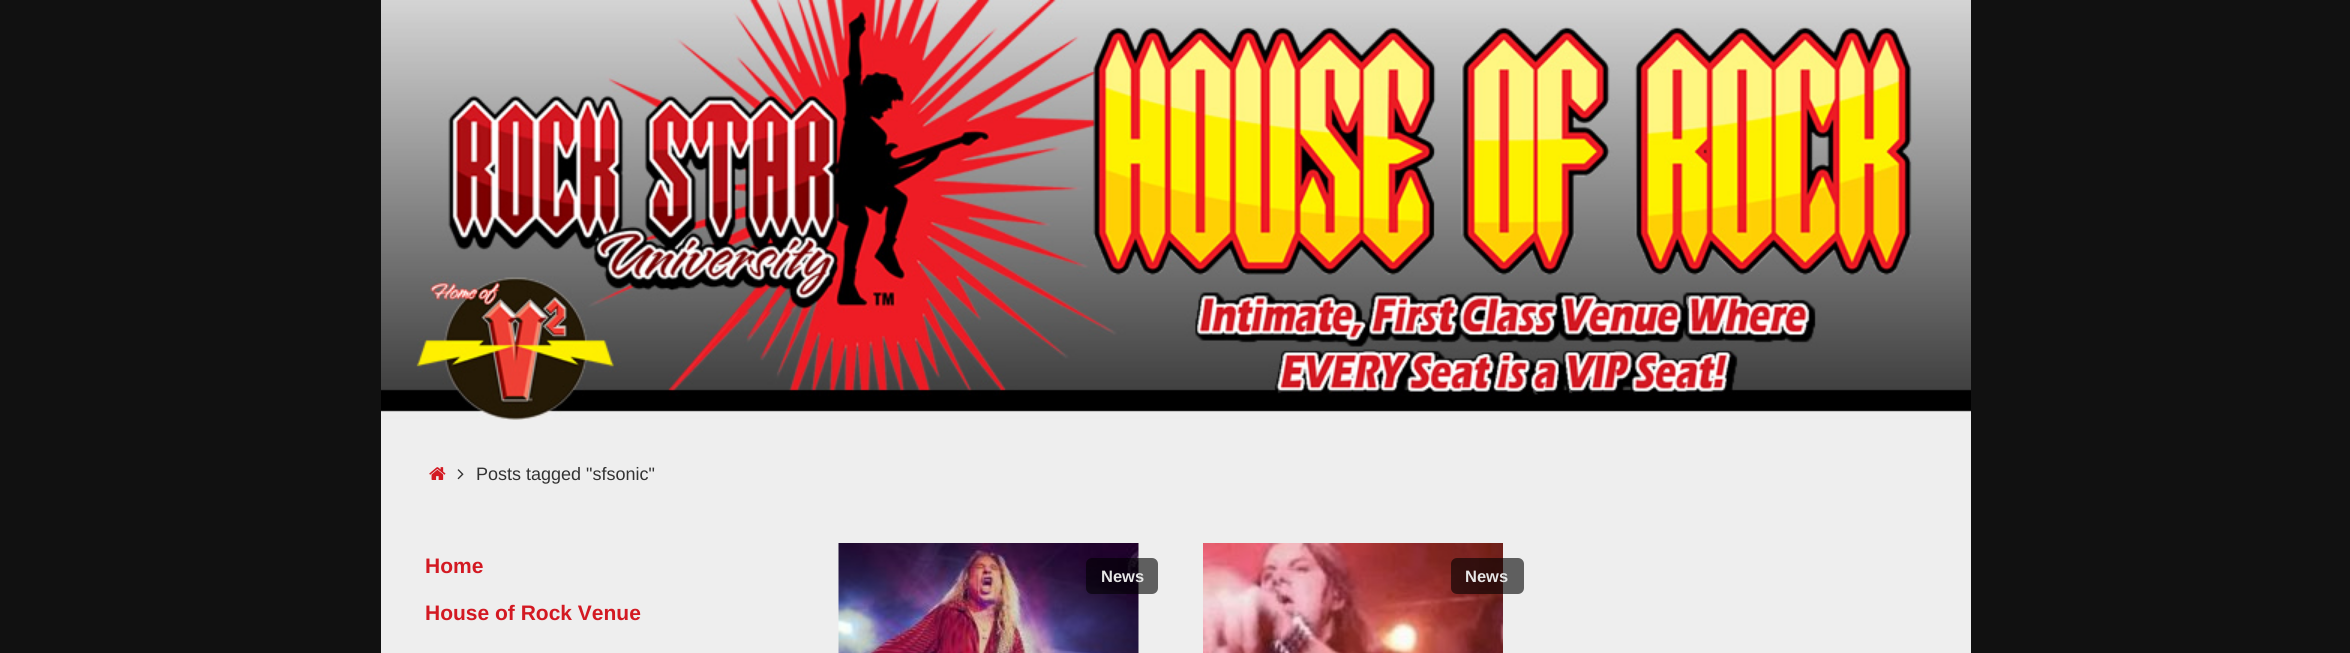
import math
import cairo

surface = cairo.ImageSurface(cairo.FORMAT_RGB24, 2350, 653)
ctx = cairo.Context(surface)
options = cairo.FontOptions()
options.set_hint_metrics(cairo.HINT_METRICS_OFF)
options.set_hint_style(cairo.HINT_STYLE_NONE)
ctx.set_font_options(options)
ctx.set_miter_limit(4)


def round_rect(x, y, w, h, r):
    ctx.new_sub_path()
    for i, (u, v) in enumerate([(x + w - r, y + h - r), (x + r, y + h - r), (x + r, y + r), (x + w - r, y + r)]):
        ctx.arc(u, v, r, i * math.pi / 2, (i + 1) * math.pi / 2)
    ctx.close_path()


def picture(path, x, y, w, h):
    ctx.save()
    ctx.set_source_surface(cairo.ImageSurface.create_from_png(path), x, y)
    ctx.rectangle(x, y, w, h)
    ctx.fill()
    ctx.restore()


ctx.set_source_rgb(0.067, 0.067, 0.067)
ctx.paint()
ctx.set_source_rgb(0.933, 0.933, 0.933)
ctx.rectangle(381, 420, 1590, 233)
ctx.fill()
picture("img1.png", 381, 0, 1590, 420)
picture("img2.png", 429, 467, 17, 13)
picture("img3.png", 457, 469, 7, 11)
ctx.select_font_face("Liberation Sans")
ctx.set_font_size(18)
ctx.set_source_rgb(0.2, 0.2, 0.2)
ctx.move_to(476, 480)
ctx.show_text("Posts tagged \"sfsonic\"")
ctx.select_font_face("Liberation Sans", cairo.FONT_SLANT_NORMAL, cairo.FONT_WEIGHT_BOLD)
ctx.set_font_size(21)
ctx.set_source_rgb(0.827, 0.098, 0.133)
ctx.move_to(425, 573)
ctx.show_text("Home")
ctx.move_to(425, 620)
ctx.show_text("House of Rock Venue")
picture("img4.png", 838, 543, 301, 110)
ctx.set_source_rgba(0, 0, 0, 0.6)
round_rect(1086, 558, 72, 36, 6)
ctx.fill()
ctx.set_font_size(16.5)
ctx.set_source_rgb(0.902, 0.902, 0.902)
ctx.move_to(1101, 582)
ctx.show_text("News")
picture("img5.png", 1203, 543, 300, 110)
ctx.set_source_rgba(0, 0, 0, 0.6)
round_rect(1451, 558, 73, 36, 6)
ctx.fill()
ctx.set_source_rgb(0.902, 0.902, 0.902)
ctx.move_to(1465, 582)
ctx.show_text("News")
surface.write_to_png("page.png")
